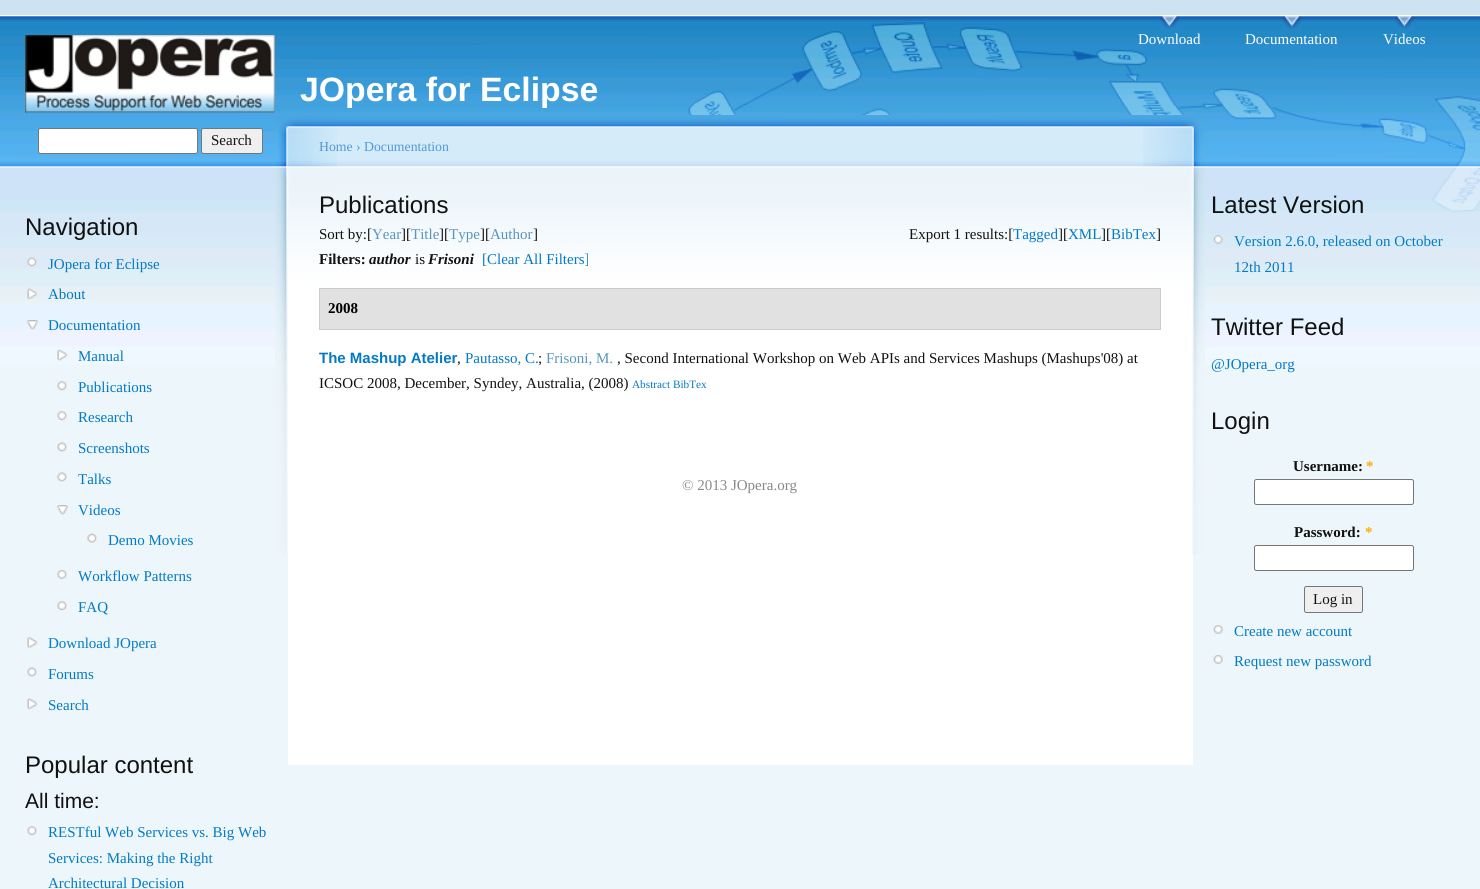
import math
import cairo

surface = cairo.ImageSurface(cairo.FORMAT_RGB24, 1480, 889)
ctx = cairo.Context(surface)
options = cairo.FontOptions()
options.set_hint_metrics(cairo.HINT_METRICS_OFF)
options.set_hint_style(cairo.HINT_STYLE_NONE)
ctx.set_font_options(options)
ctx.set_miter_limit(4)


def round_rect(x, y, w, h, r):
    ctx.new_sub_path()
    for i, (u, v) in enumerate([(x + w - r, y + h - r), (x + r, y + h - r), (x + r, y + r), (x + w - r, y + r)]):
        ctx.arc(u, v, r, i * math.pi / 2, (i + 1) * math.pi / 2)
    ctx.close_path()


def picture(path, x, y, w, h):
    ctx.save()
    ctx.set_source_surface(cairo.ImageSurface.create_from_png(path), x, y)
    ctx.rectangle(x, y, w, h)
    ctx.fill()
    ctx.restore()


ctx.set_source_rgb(0.929, 0.961, 0.98)
ctx.paint()
ctx.set_source_rgb(0.804, 0.89, 0.945)
ctx.rectangle(0, 0, 1480, 15)
ctx.fill()
picture("img1.png", 0, 15, 1480, 350)
picture("img2.png", 1159, 16, 21, 14)
ctx.select_font_face("Liberation Serif")
ctx.set_font_size(15)
ctx.set_source_rgb(1, 1, 1)
ctx.move_to(1138, 44)
ctx.show_text("Download")
picture("img3.png", 1281, 16, 22, 14)
ctx.move_to(1245, 44)
ctx.show_text("Documentation")
picture("img2.png", 1394, 16, 21, 14)
ctx.move_to(1383, 44)
ctx.show_text("Videos")
picture("img4.png", 25, 35, 250, 78)
ctx.select_font_face("Liberation Sans", cairo.FONT_SLANT_NORMAL, cairo.FONT_WEIGHT_BOLD)
ctx.set_font_size(33.75)
ctx.move_to(300, 101)
ctx.show_text("JOpera for Eclipse")
round_rect(38.5, 128.5, 159, 25, 2)
ctx.fill_preserve()
ctx.set_source_rgb(0.463, 0.463, 0.463)
ctx.set_line_width(1)
ctx.stroke()
ctx.set_source_rgb(0.937, 0.937, 0.937)
round_rect(201.5, 128.5, 61, 25, 2)
ctx.fill_preserve()
ctx.set_source_rgb(0.463, 0.463, 0.463)
ctx.stroke()
ctx.select_font_face("Liberation Serif")
ctx.set_font_size(15)
ctx.set_source_rgb(0.067, 0.067, 0.067)
ctx.move_to(211, 145)
ctx.show_text("Search")
ctx.select_font_face("Liberation Sans")
ctx.set_font_size(24)
ctx.move_to(25, 235)
ctx.show_text("Navigation")
picture("img5.png", 27, 257, 10, 10)
ctx.select_font_face("Liberation Serif")
ctx.set_font_size(15)
ctx.set_source_rgb(0.008, 0.478, 0.776)
ctx.move_to(48, 269)
ctx.show_text("JOpera for Eclipse")
picture("img6.png", 27, 287, 11, 13)
ctx.move_to(48, 299)
ctx.show_text("About")
picture("img7.png", 26, 320, 13, 10)
ctx.move_to(48, 330)
ctx.show_text("Documentation")
picture("img8.png", 57, 349, 11, 12)
ctx.move_to(78, 361)
ctx.show_text("Manual")
picture("img9.png", 57, 381, 10, 10)
ctx.move_to(78, 392)
ctx.show_text("Publications")
picture("img9.png", 57, 411, 10, 10)
ctx.move_to(78, 422)
ctx.show_text("Research")
picture("img10.png", 57, 442, 10, 10)
ctx.move_to(78, 453)
ctx.show_text("Screenshots")
picture("img10.png", 57, 472, 10, 10)
ctx.move_to(78, 484)
ctx.show_text("Talks")
picture("img11.png", 56, 505, 13, 10)
ctx.move_to(78, 515)
ctx.show_text("Videos")
picture("img12.png", 87, 533, 10, 10)
ctx.move_to(108, 545)
ctx.show_text("Demo Movies")
picture("img13.png", 57, 570, 10, 9)
ctx.move_to(78, 581)
ctx.show_text("Workflow Patterns")
picture("img9.png", 57, 601, 10, 10)
ctx.move_to(78, 612)
ctx.show_text("FAQ")
picture("img14.png", 27, 636, 11, 13)
ctx.move_to(48, 648)
ctx.show_text("Download JOpera")
picture("img10.png", 27, 667, 10, 10)
ctx.move_to(48, 679)
ctx.show_text("Forums")
picture("img15.png", 27, 697, 11, 13)
ctx.move_to(48, 710)
ctx.show_text("Search")
ctx.select_font_face("Liberation Sans")
ctx.set_font_size(24)
ctx.set_source_rgb(0.067, 0.067, 0.067)
ctx.move_to(25, 773)
ctx.show_text("Popular content")
ctx.set_font_size(21)
ctx.move_to(25, 808)
ctx.show_text("All time:")
picture("img9.png", 27, 826, 10, 10)
ctx.select_font_face("Liberation Serif")
ctx.set_font_size(15)
ctx.set_source_rgb(0.008, 0.478, 0.776)
ctx.move_to(48, 837)
ctx.show_text("RESTful Web Services vs. Big Web")
ctx.move_to(48, 863)
ctx.show_text("Services: Making the Right")
ctx.move_to(48, 888)
ctx.show_text("Architectural Decision")
ctx.set_source_rgb(1, 1, 1)
ctx.rectangle(288, 365, 905, 400)
ctx.fill()
picture("img16.png", 337, 115, 806, 250)
picture("img17.png", 1142, 115, 63, 440)
picture("img18.png", 275, 115, 62, 440)
ctx.set_font_size(13.75)
ctx.set_source_rgb(0.322, 0.604, 0.839)
ctx.move_to(319, 151)
ctx.show_text("Home › Documentation")
ctx.select_font_face("Liberation Sans")
ctx.set_font_size(24)
ctx.set_source_rgb(0.067, 0.067, 0.067)
ctx.move_to(319, 213)
ctx.show_text("Publications")
ctx.select_font_face("Liberation Serif")
ctx.set_font_size(15)
ctx.move_to(319, 239)
ctx.show_text("Sort by:[")
ctx.set_source_rgb(0.345, 0.584, 0.745)
ctx.move_to(372, 239)
ctx.show_text("Year")
ctx.set_source_rgb(0.067, 0.067, 0.067)
ctx.move_to(401, 239)
ctx.show_text("][")
ctx.set_source_rgb(0.345, 0.584, 0.745)
ctx.move_to(411, 239)
ctx.show_text("Title")
ctx.set_source_rgb(0.067, 0.067, 0.067)
ctx.move_to(439, 239)
ctx.show_text("][")
ctx.set_source_rgb(0.345, 0.584, 0.745)
ctx.move_to(449, 239)
ctx.show_text("Type")
ctx.set_source_rgb(0.067, 0.067, 0.067)
ctx.move_to(480, 239)
ctx.show_text("][")
ctx.set_source_rgb(0.345, 0.584, 0.745)
ctx.move_to(490, 239)
ctx.show_text("Author")
ctx.set_source_rgb(0.067, 0.067, 0.067)
ctx.move_to(533, 239)
ctx.show_text("]")
ctx.move_to(909, 239)
ctx.show_text("Export 1 results:[")
ctx.set_source_rgb(0.008, 0.478, 0.776)
ctx.move_to(1013, 239)
ctx.show_text("Tagged")
ctx.set_source_rgb(0.067, 0.067, 0.067)
ctx.move_to(1058, 239)
ctx.show_text("][")
ctx.set_source_rgb(0.008, 0.478, 0.776)
ctx.move_to(1068, 239)
ctx.show_text("XML")
ctx.set_source_rgb(0.067, 0.067, 0.067)
ctx.move_to(1101, 239)
ctx.show_text("][")
ctx.set_source_rgb(0.008, 0.478, 0.776)
ctx.move_to(1111, 239)
ctx.show_text("BibTex")
ctx.set_source_rgb(0.067, 0.067, 0.067)
ctx.move_to(1156, 239)
ctx.show_text("]")
ctx.select_font_face("Liberation Serif", cairo.FONT_SLANT_NORMAL, cairo.FONT_WEIGHT_BOLD)
ctx.move_to(319, 264)
ctx.show_text("Filters:")
ctx.select_font_face("Liberation Serif", cairo.FONT_SLANT_ITALIC, cairo.FONT_WEIGHT_BOLD)
ctx.move_to(369, 264)
ctx.show_text("author")
ctx.select_font_face("Liberation Serif")
ctx.move_to(415, 264)
ctx.show_text("is")
ctx.select_font_face("Liberation Serif", cairo.FONT_SLANT_ITALIC, cairo.FONT_WEIGHT_BOLD)
ctx.move_to(428, 264)
ctx.show_text("Frisoni")
ctx.select_font_face("Liberation Serif")
ctx.set_source_rgb(0.008, 0.478, 0.776)
ctx.move_to(482, 264)
ctx.show_text("[Clear All Filters]")
ctx.set_source_rgb(0.882, 0.882, 0.882)
ctx.rectangle(319.5, 288.5, 841, 41)
ctx.fill_preserve()
ctx.set_source_rgb(0.8, 0.8, 0.8)
ctx.stroke()
ctx.select_font_face("Liberation Serif", cairo.FONT_SLANT_NORMAL, cairo.FONT_WEIGHT_BOLD)
ctx.set_source_rgb(0, 0, 0)
ctx.move_to(328, 313)
ctx.show_text("2008")
ctx.select_font_face("Liberation Sans", cairo.FONT_SLANT_NORMAL, cairo.FONT_WEIGHT_BOLD)
ctx.set_source_rgb(0.008, 0.478, 0.776)
ctx.move_to(319, 363)
ctx.show_text("The Mashup Atelier")
ctx.select_font_face("Liberation Serif")
ctx.set_source_rgb(0.067, 0.067, 0.067)
ctx.move_to(457, 363)
ctx.show_text(",")
ctx.set_source_rgb(0.008, 0.478, 0.776)
ctx.move_to(465, 363)
ctx.show_text("Pautasso, C.")
ctx.set_source_rgb(0.067, 0.067, 0.067)
ctx.move_to(538, 363)
ctx.show_text(";")
ctx.set_source_rgb(0.345, 0.584, 0.745)
ctx.move_to(546, 363)
ctx.show_text("Frisoni, M.")
ctx.set_source_rgb(0.067, 0.067, 0.067)
ctx.move_to(617, 363)
ctx.show_text(", Second International Workshop on Web APIs and Services Mashups (Mashups'08) at")
ctx.move_to(319, 388)
ctx.show_text("ICSOC 2008, December, Syndey, Australia, (2008)")
ctx.set_font_size(11.25)
ctx.set_source_rgb(0.008, 0.478, 0.776)
ctx.move_to(632, 388)
ctx.show_text("Abstract BibTex")
ctx.set_font_size(15)
ctx.set_source_rgb(0.537, 0.537, 0.537)
ctx.move_to(682, 490)
ctx.show_text("© 2013 JOpera.org")
ctx.select_font_face("Liberation Sans")
ctx.set_font_size(24)
ctx.set_source_rgb(0.067, 0.067, 0.067)
ctx.move_to(1211, 213)
ctx.show_text("Latest Version")
picture("img19.png", 1213, 235, 10, 9)
ctx.select_font_face("Liberation Serif")
ctx.set_font_size(15)
ctx.set_source_rgb(0.008, 0.478, 0.776)
ctx.move_to(1234, 246)
ctx.show_text("Version 2.6.0, released on October")
ctx.move_to(1234, 272)
ctx.show_text("12th 2011")
ctx.select_font_face("Liberation Sans")
ctx.set_font_size(24)
ctx.set_source_rgb(0.067, 0.067, 0.067)
ctx.move_to(1211, 335)
ctx.show_text("Twitter Feed")
ctx.select_font_face("Liberation Serif")
ctx.set_font_size(15)
ctx.set_source_rgb(0.008, 0.478, 0.776)
ctx.move_to(1211, 369)
ctx.show_text("@JOpera_org")
ctx.select_font_face("Liberation Sans")
ctx.set_font_size(24)
ctx.set_source_rgb(0.067, 0.067, 0.067)
ctx.move_to(1211, 429)
ctx.show_text("Login")
ctx.select_font_face("Liberation Serif", cairo.FONT_SLANT_NORMAL, cairo.FONT_WEIGHT_BOLD)
ctx.set_font_size(15)
ctx.move_to(1293, 471)
ctx.show_text("Username:")
ctx.set_source_rgb(1, 0.682, 0)
ctx.move_to(1366, 471)
ctx.show_text("*")
ctx.set_source_rgb(1, 1, 1)
round_rect(1254.5, 479.5, 159, 25, 2)
ctx.fill_preserve()
ctx.set_source_rgb(0.463, 0.463, 0.463)
ctx.stroke()
ctx.set_source_rgb(0.067, 0.067, 0.067)
ctx.move_to(1294, 537)
ctx.show_text("Password:")
ctx.set_source_rgb(1, 0.682, 0)
ctx.move_to(1365, 537)
ctx.show_text("*")
ctx.set_source_rgb(1, 1, 1)
round_rect(1254.5, 545.5, 159, 25, 2)
ctx.fill_preserve()
ctx.set_source_rgb(0.463, 0.463, 0.463)
ctx.stroke()
ctx.set_source_rgb(0.937, 0.937, 0.937)
round_rect(1304.5, 586.5, 58, 26, 2)
ctx.fill_preserve()
ctx.set_source_rgb(0.463, 0.463, 0.463)
ctx.stroke()
ctx.select_font_face("Liberation Serif")
ctx.set_source_rgb(0.067, 0.067, 0.067)
ctx.move_to(1313, 604)
ctx.show_text("Log in")
picture("img20.png", 1213, 625, 10, 9)
ctx.set_source_rgb(0.008, 0.478, 0.776)
ctx.move_to(1234, 636)
ctx.show_text("Create new account")
picture("img20.png", 1213, 655, 10, 9)
ctx.move_to(1234, 666)
ctx.show_text("Request new password")
surface.write_to_png("page.png")
